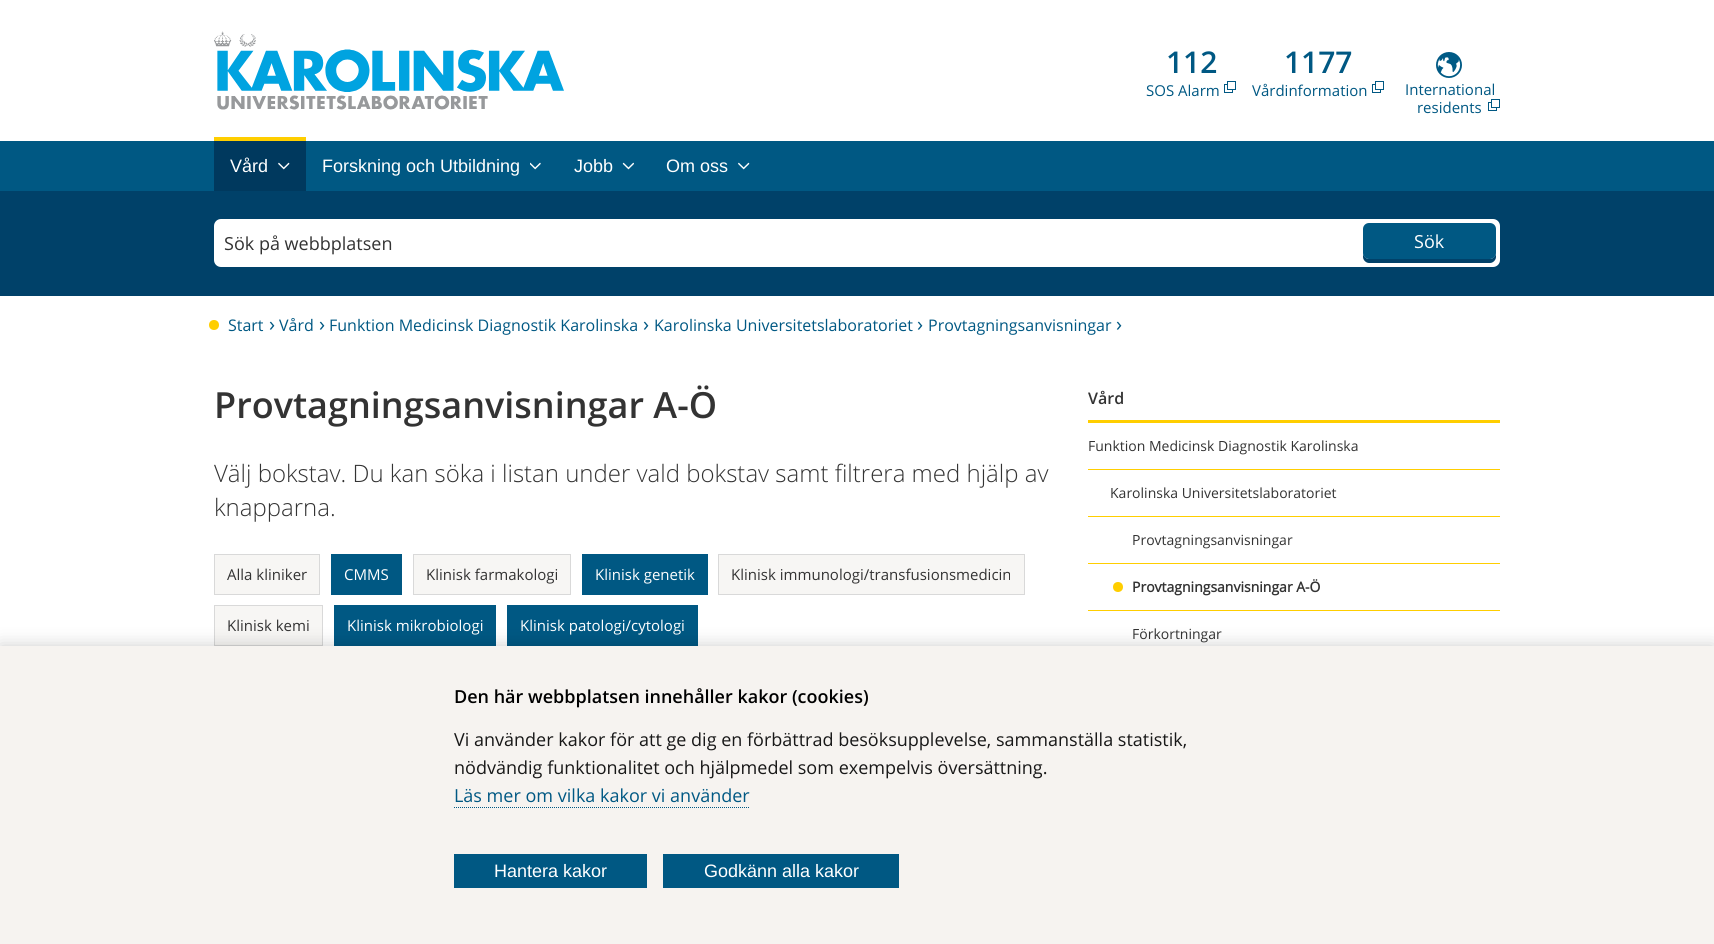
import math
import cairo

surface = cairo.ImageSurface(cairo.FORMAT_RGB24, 1714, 944)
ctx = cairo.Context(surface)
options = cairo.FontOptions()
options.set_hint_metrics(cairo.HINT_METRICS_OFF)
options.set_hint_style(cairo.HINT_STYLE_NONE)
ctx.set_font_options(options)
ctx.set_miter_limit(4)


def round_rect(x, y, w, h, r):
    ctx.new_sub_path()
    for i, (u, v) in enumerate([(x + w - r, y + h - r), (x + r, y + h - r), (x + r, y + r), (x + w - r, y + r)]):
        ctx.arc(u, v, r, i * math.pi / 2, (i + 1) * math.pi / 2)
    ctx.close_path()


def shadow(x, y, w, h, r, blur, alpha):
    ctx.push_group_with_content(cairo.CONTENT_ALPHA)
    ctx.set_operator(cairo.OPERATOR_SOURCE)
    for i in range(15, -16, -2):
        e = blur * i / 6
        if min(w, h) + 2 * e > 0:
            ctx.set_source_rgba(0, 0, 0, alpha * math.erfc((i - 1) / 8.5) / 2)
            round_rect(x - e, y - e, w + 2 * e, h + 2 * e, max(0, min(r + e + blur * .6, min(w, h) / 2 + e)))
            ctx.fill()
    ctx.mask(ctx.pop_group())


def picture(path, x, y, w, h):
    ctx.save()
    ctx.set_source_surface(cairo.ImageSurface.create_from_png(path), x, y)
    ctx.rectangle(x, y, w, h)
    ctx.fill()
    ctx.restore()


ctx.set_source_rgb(1, 1, 1)
ctx.paint()
picture("img1.png", 214, 31, 350, 79)
ctx.select_font_face("Open Sans SemiBold")
ctx.set_font_size(30)
ctx.set_source_rgb(0, 0.345, 0.514)
ctx.move_to(1166, 73)
ctx.show_text("112")
ctx.select_font_face("Open Sans")
ctx.set_font_size(15)
ctx.move_to(1146, 96)
ctx.show_text("SOS Alarm")
picture("img2.png", 1224, 81, 12, 12)
ctx.select_font_face("Open Sans SemiBold")
ctx.set_font_size(30)
ctx.move_to(1284, 73)
ctx.show_text("1177")
ctx.select_font_face("Open Sans")
ctx.set_font_size(15)
ctx.move_to(1252, 96)
ctx.show_text("Vårdinformation")
picture("img2.png", 1372, 81, 12, 12)
picture("img3.png", 1436, 52, 26, 26)
ctx.move_to(1405, 95)
ctx.show_text("International")
ctx.move_to(1417, 113)
ctx.show_text("residents")
picture("img2.png", 1488, 99, 12, 12)
ctx.rectangle(0, 141, 1714, 50)
ctx.fill()
ctx.set_source_rgb(0, 0.224, 0.369)
ctx.rectangle(214, 141, 92, 50)
ctx.fill()
ctx.set_source_rgb(1, 0.808, 0)
ctx.rectangle(214, 137, 92, 4)
ctx.fill()
ctx.select_font_face("Liberation Sans")
ctx.set_font_size(18)
ctx.set_source_rgb(1, 1, 1)
ctx.move_to(230, 172)
ctx.show_text("Vård")
picture("img4.png", 278, 162, 12, 8)
ctx.move_to(322, 172)
ctx.show_text("Forskning och Utbildning")
picture("img5.png", 530, 162, 11, 8)
ctx.move_to(574, 172)
ctx.show_text("Jobb")
picture("img6.png", 622, 162, 12, 8)
ctx.move_to(666, 172)
ctx.show_text("Om oss")
picture("img7.png", 738, 162, 12, 8)
ctx.set_source_rgb(0, 0.255, 0.412)
ctx.rectangle(0, 191, 1714, 105)
ctx.fill()
ctx.set_source_rgb(1, 1, 1)
round_rect(214, 219, 1286, 48, 7)
ctx.fill()
ctx.select_font_face("Open Sans")
ctx.set_source_rgb(0.2, 0.2, 0.2)
ctx.move_to(224, 250)
ctx.show_text("Sök på webbplatsen")
ctx.set_source_rgb(0, 0.255, 0.412)
ctx.new_path()
ctx.move_to(1363, 253)
ctx.line_to(1363, 257)
ctx.curve_to(1363, 260, 1366, 263, 1369, 263)
ctx.line_to(1490, 263)
ctx.curve_to(1493, 263, 1496, 260, 1496, 257)
ctx.line_to(1496, 253)
ctx.curve_to(1496, 256, 1493, 259, 1490, 259)
ctx.line_to(1369, 259)
ctx.curve_to(1366, 259, 1363, 256, 1363, 253)
ctx.close_path()
ctx.fill()
ctx.set_source_rgb(0, 0.345, 0.514)
round_rect(1363, 223, 133, 36, 6)
ctx.fill()
ctx.set_source_rgb(1, 1, 1)
ctx.move_to(1414, 248)
ctx.show_text("Sök")
ctx.set_source_rgb(1, 0.808, 0)
ctx.new_path()
ctx.arc(214, 325, 5, 0, 2 * math.pi)
ctx.fill()
ctx.set_font_size(16)
ctx.set_source_rgb(0, 0.345, 0.514)
ctx.move_to(228, 331)
ctx.show_text("Start")
ctx.set_font_size(20)
ctx.move_to(269, 331)
ctx.show_text("›")
ctx.set_font_size(16)
ctx.move_to(279, 331)
ctx.show_text("Vård")
ctx.set_font_size(20)
ctx.move_to(319, 331)
ctx.show_text("›")
ctx.set_font_size(16)
ctx.move_to(329, 331)
ctx.show_text("Funktion Medicinsk Diagnostik Karolinska")
ctx.set_font_size(20)
ctx.move_to(643, 331)
ctx.show_text("›")
ctx.set_font_size(16)
ctx.move_to(654, 331)
ctx.show_text("Karolinska Universitetslaboratoriet")
ctx.set_font_size(20)
ctx.move_to(917, 331)
ctx.show_text("›")
ctx.set_font_size(16)
ctx.move_to(928, 331)
ctx.show_text("Provtagningsanvisningar")
ctx.set_font_size(20)
ctx.move_to(1116, 331)
ctx.show_text("›")
ctx.select_font_face("Open Sans SemiBold")
ctx.set_font_size(36)
ctx.set_source_rgb(0.2, 0.2, 0.2)
ctx.move_to(214, 418)
ctx.show_text("Provtagningsanvisningar A-Ö")
ctx.select_font_face("Open Sans Light")
ctx.set_font_size(24)
ctx.move_to(214, 482)
ctx.show_text("Välj bokstav. Du kan söka i listan under vald bokstav samt filtrera med hjälp av")
ctx.move_to(214, 516)
ctx.show_text("knapparna.")
ctx.set_source_rgb(0.965, 0.961, 0.957)
ctx.rectangle(214.5, 554.5, 105, 40)
ctx.fill_preserve()
ctx.set_source_rgb(0.851, 0.851, 0.851)
ctx.set_line_width(1)
ctx.stroke()
ctx.select_font_face("Open Sans")
ctx.set_font_size(15)
ctx.set_source_rgb(0.2, 0.2, 0.2)
ctx.move_to(227, 580)
ctx.show_text("Alla kliniker")
ctx.set_source_rgb(0, 0.345, 0.514)
ctx.rectangle(331, 554, 71, 41)
ctx.fill()
ctx.set_source_rgb(1, 1, 1)
ctx.move_to(344, 580)
ctx.show_text("CMMS")
ctx.set_source_rgb(0.965, 0.961, 0.957)
ctx.rectangle(413.5, 554.5, 157, 40)
ctx.fill_preserve()
ctx.set_source_rgb(0.851, 0.851, 0.851)
ctx.stroke()
ctx.set_source_rgb(0.2, 0.2, 0.2)
ctx.move_to(426, 580)
ctx.show_text("Klinisk farmakologi")
ctx.set_source_rgb(0, 0.345, 0.514)
ctx.rectangle(582, 554, 126, 41)
ctx.fill()
ctx.set_source_rgb(1, 1, 1)
ctx.move_to(595, 580)
ctx.show_text("Klinisk genetik")
ctx.set_source_rgb(0.965, 0.961, 0.957)
ctx.rectangle(718.5, 554.5, 306, 40)
ctx.fill_preserve()
ctx.set_source_rgb(0.851, 0.851, 0.851)
ctx.stroke()
ctx.set_source_rgb(0.2, 0.2, 0.2)
ctx.move_to(731, 580)
ctx.show_text("Klinisk immunologi/transfusionsmedicin")
ctx.set_source_rgb(0.965, 0.961, 0.957)
ctx.rectangle(214.5, 605.5, 108, 40)
ctx.fill_preserve()
ctx.set_source_rgb(0.851, 0.851, 0.851)
ctx.stroke()
ctx.set_source_rgb(0.2, 0.2, 0.2)
ctx.move_to(227, 631)
ctx.show_text("Klinisk kemi")
ctx.set_source_rgb(0, 0.345, 0.514)
ctx.rectangle(334, 605, 162, 41)
ctx.fill()
ctx.set_source_rgb(1, 1, 1)
ctx.move_to(347, 631)
ctx.show_text("Klinisk mikrobiologi")
ctx.set_source_rgb(0, 0.345, 0.514)
ctx.rectangle(507, 605, 191, 41)
ctx.fill()
ctx.set_source_rgb(1, 1, 1)
ctx.move_to(520, 631)
ctx.show_text("Klinisk patologi/cytologi")
ctx.set_source_rgb(1, 0.808, 0)
ctx.rectangle(1088, 420, 412, 3)
ctx.fill()
ctx.select_font_face("Open Sans SemiBold")
ctx.set_font_size(16)
ctx.set_source_rgb(0.2, 0.2, 0.2)
ctx.move_to(1088, 404)
ctx.show_text("Vård")
ctx.set_source_rgb(1, 0.808, 0)
ctx.rectangle(1088, 469, 412, 1)
ctx.fill()
ctx.select_font_face("Open Sans")
ctx.set_font_size(14)
ctx.set_source_rgb(0.2, 0.2, 0.2)
ctx.move_to(1088, 451)
ctx.show_text("Funktion Medicinsk Diagnostik Karolinska")
ctx.set_source_rgb(1, 0.808, 0)
ctx.rectangle(1088, 516, 412, 1)
ctx.fill()
ctx.set_source_rgb(0.2, 0.2, 0.2)
ctx.move_to(1110, 498)
ctx.show_text("Karolinska Universitetslaboratoriet")
ctx.set_source_rgb(1, 0.808, 0)
ctx.rectangle(1088, 563, 412, 1)
ctx.fill()
ctx.set_source_rgb(0.2, 0.2, 0.2)
ctx.move_to(1132, 545)
ctx.show_text("Provtagningsanvisningar")
ctx.set_source_rgb(1, 0.808, 0)
ctx.rectangle(1088, 610, 412, 1)
ctx.fill()
ctx.arc(1118, 587, 5, 0, 2 * math.pi)
ctx.fill()
ctx.select_font_face("Open Sans", cairo.FONT_SLANT_NORMAL, cairo.FONT_WEIGHT_BOLD)
ctx.set_source_rgb(0.2, 0.2, 0.2)
ctx.move_to(1132, 592)
ctx.show_text("Provtagningsanvisningar A-Ö")
ctx.select_font_face("Open Sans")
ctx.move_to(1132, 639)
ctx.show_text("Förkortningar")
ctx.set_source_rgb(0, 0, 0)
shadow(0, 646, 1714, 298, 0, 9, 0.2)
ctx.set_source_rgb(0.961, 0.953, 0.941)
ctx.rectangle(0, 646, 1714, 298)
ctx.fill()
ctx.select_font_face("Open Sans SemiBold")
ctx.set_font_size(18)
ctx.set_source_rgb(0, 0, 0)
ctx.move_to(454, 703)
ctx.show_text("Den här webbplatsen innehåller kakor (cookies)")
ctx.select_font_face("Open Sans")
ctx.set_source_rgb(0.094, 0.094, 0.094)
ctx.move_to(454, 746)
ctx.show_text("Vi använder kakor för att ge dig en förbättrad besöksupplevelse, sammanställa statistik,")
ctx.move_to(454, 774)
ctx.show_text("nödvändig funktionalitet och hjälpmedel som exempelvis översättning.")
ctx.set_source_rgb(0, 0.345, 0.514)
ctx.move_to(454, 802)
ctx.show_text("Läs mer om vilka kakor vi använder")
ctx.new_path()
ctx.move_to(454, 807.5)
ctx.line_to(750, 807.5)
ctx.set_dash([1, 1])
ctx.stroke()
ctx.rectangle(454, 854, 193, 34)
ctx.fill()
ctx.select_font_face("Liberation Sans")
ctx.set_source_rgb(1, 1, 1)
ctx.move_to(494, 877)
ctx.show_text("Hantera kakor")
ctx.set_source_rgb(0, 0.345, 0.514)
ctx.rectangle(663, 854, 236, 34)
ctx.fill()
ctx.set_source_rgb(1, 1, 1)
ctx.move_to(704, 877)
ctx.show_text("Godkänn alla kakor")
surface.write_to_png("page.png")
